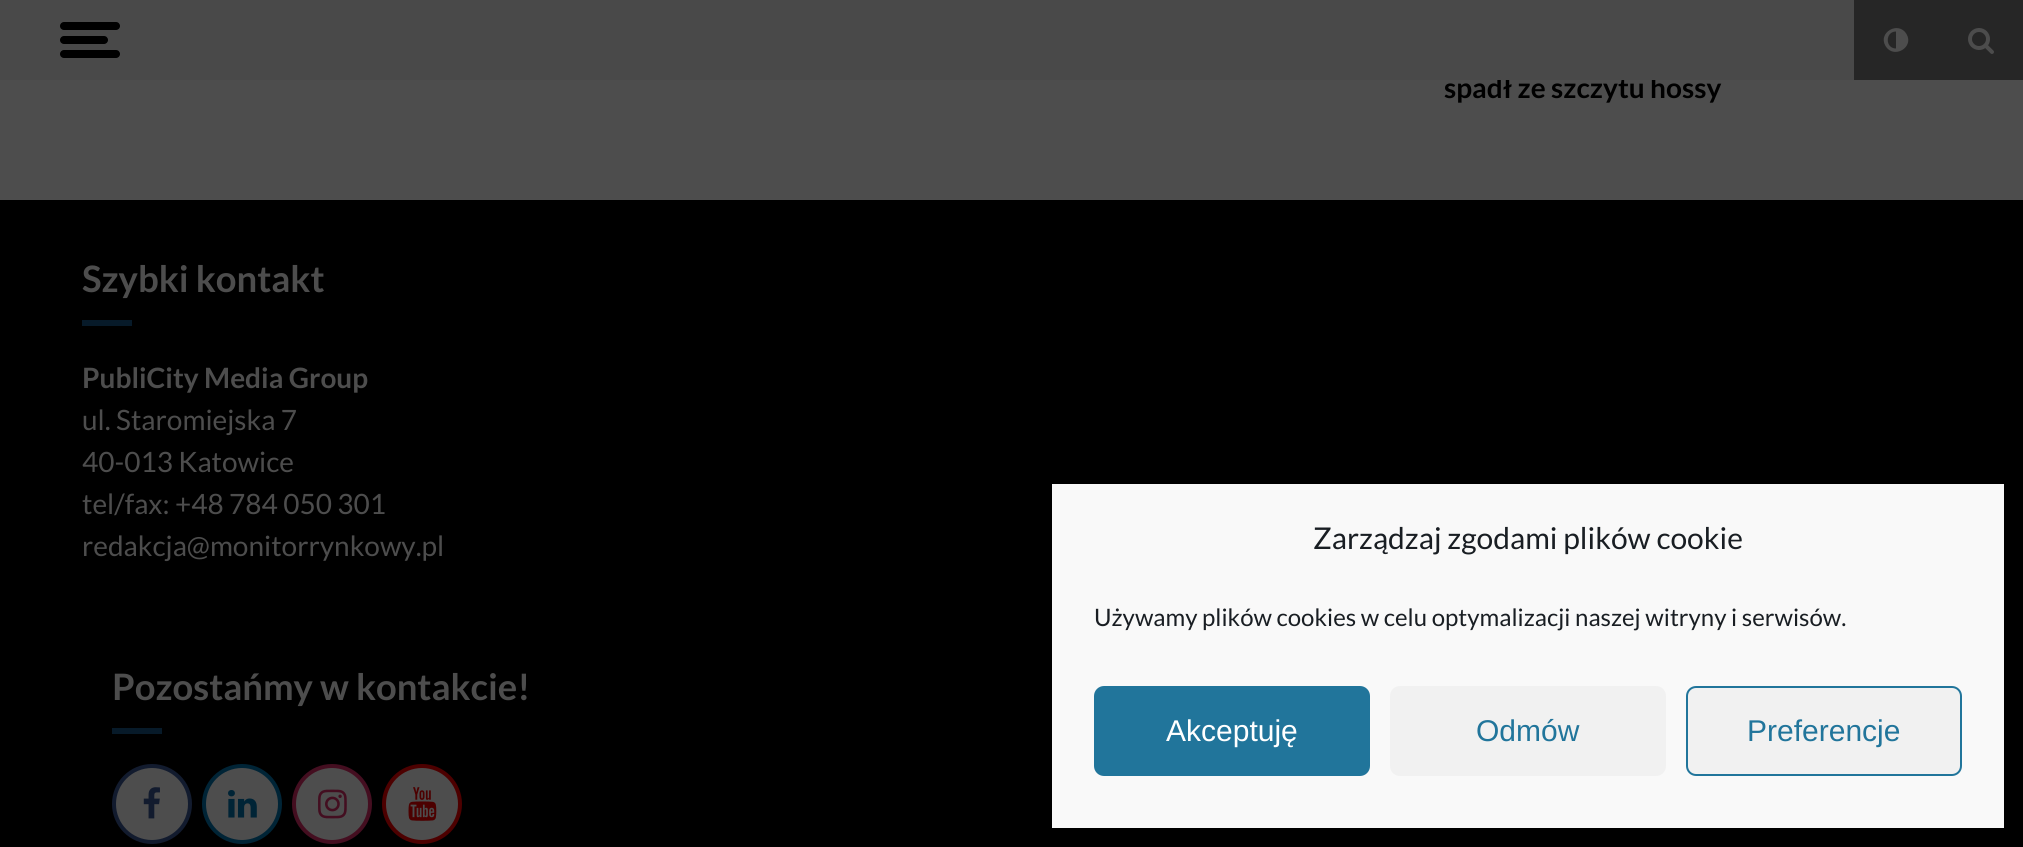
import math
import cairo

surface = cairo.ImageSurface(cairo.FORMAT_RGB24, 2023, 847)
ctx = cairo.Context(surface)
options = cairo.FontOptions()
options.set_hint_metrics(cairo.HINT_METRICS_OFF)
options.set_hint_style(cairo.HINT_STYLE_NONE)
ctx.set_font_options(options)
ctx.set_miter_limit(4)


def round_rect(x, y, w, h, r):
    ctx.new_sub_path()
    for i, (u, v) in enumerate([(x + w - r, y + h - r), (x + r, y + h - r), (x + r, y + r), (x + w - r, y + r)]):
        ctx.arc(u, v, r, i * math.pi / 2, (i + 1) * math.pi / 2)
    ctx.close_path()


def picture(path, x, y, w, h):
    ctx.save()
    ctx.set_source_surface(cairo.ImageSurface.create_from_png(path), x, y)
    ctx.rectangle(x, y, w, h)
    ctx.fill()
    ctx.restore()


ctx.set_source_rgb(0.302, 0.302, 0.302)
ctx.paint()
ctx.select_font_face("Lato", cairo.FONT_SLANT_NORMAL, cairo.FONT_WEIGHT_BOLD)
ctx.set_font_size(28)
ctx.set_source_rgb(0, 0, 0)
ctx.move_to(1444, 98)
ctx.show_text("spadł ze szczytu hossy")
ctx.set_source_rgb(0.286, 0.286, 0.286)
ctx.rectangle(0, 0, 1854, 80)
ctx.fill()
ctx.set_source_rgb(0, 0, 0)
round_rect(60, 22, 60, 8, 4)
ctx.fill()
round_rect(60, 50, 60, 8, 4)
ctx.fill()
round_rect(60, 36, 48, 8, 4)
ctx.fill()
ctx.set_source_rgb(0.149, 0.149, 0.149)
ctx.rectangle(1854, 0, 169, 80)
ctx.fill()
ctx.set_source_rgb(0.302, 0.302, 0.302)
ctx.new_path()
ctx.move_to(1896, 48.5)
ctx.line_to(1896, 31.5)
ctx.curve_to(1885, 31.5, 1885, 48.5, 1896, 48.5)
ctx.close_path()
ctx.move_to(1906.5, 34)
ctx.curve_to(1914.5, 47.5, 1893.5, 59.5, 1885.5, 46)
ctx.curve_to(1877.5, 32.5, 1898.5, 20.5, 1906.5, 34)
ctx.close_path()
ctx.fill()
picture("img1.png", 1968, 28, 26, 26)
ctx.set_source_rgb(0, 0, 0)
ctx.rectangle(0, 200, 2023, 647)
ctx.fill()
ctx.set_font_size(36.4)
ctx.set_source_rgb(0.302, 0.302, 0.302)
ctx.move_to(82, 292)
ctx.show_text("Szybki kontakt")
ctx.set_source_rgb(0.031, 0.102, 0.161)
ctx.rectangle(82, 320, 50, 6)
ctx.fill()
ctx.set_font_size(28)
ctx.set_source_rgb(0.302, 0.302, 0.302)
ctx.move_to(82, 388)
ctx.show_text("PubliCity Media Group")
ctx.select_font_face("Lato")
ctx.move_to(82, 430)
ctx.show_text("ul. Staromiejska 7")
ctx.move_to(82, 472)
ctx.show_text("40-013 Katowice")
ctx.move_to(82, 514)
ctx.show_text("tel/fax: +48 784 050 301")
ctx.move_to(82, 556)
ctx.show_text("redakcja@monitorrynkowy.pl")
ctx.select_font_face("Lato", cairo.FONT_SLANT_NORMAL, cairo.FONT_WEIGHT_BOLD)
ctx.set_font_size(36.4)
ctx.move_to(112, 700)
ctx.show_text("Pozostańmy w kontakcie!")
ctx.set_source_rgb(0.031, 0.102, 0.161)
ctx.rectangle(112, 728, 50, 6)
ctx.fill()
ctx.set_source_rgb(0.302, 0.302, 0.302)
ctx.arc(152, 804, 38, 0, 2 * math.pi)
ctx.fill_preserve()
ctx.set_source_rgb(0.071, 0.106, 0.18)
ctx.set_line_width(4)
ctx.stroke()
picture("img2.png", 143, 787, 17, 32)
ctx.set_source_rgb(0.302, 0.302, 0.302)
ctx.arc(242, 804, 38, 0, 2 * math.pi)
ctx.fill_preserve()
ctx.set_source_rgb(0, 0.141, 0.212)
ctx.stroke()
picture("img3.png", 228, 790, 29, 28)
ctx.set_source_rgb(0.302, 0.302, 0.302)
ctx.arc(332, 804, 38, 0, 2 * math.pi)
ctx.fill_preserve()
ctx.set_source_rgb(0.267, 0.055, 0.125)
ctx.stroke()
picture("img4.png", 318, 789, 29, 30)
ctx.set_source_rgb(0.302, 0.302, 0.302)
ctx.arc(422, 804, 38, 0, 2 * math.pi)
ctx.fill_preserve()
ctx.set_source_rgb(0.302, 0, 0)
ctx.stroke()
picture("img5.png", 408, 787, 29, 34)
ctx.set_source_rgb(0.976, 0.976, 0.976)
ctx.rectangle(1052, 484, 952, 344)
ctx.fill()
ctx.select_font_face("Lato")
ctx.set_font_size(30)
ctx.set_source_rgb(0.098, 0.118, 0.137)
ctx.move_to(1313, 549)
ctx.show_text("Zarządzaj zgodami plików cookie")
ctx.set_font_size(24)
ctx.move_to(1094, 626)
ctx.show_text("Używamy plików cookies w celu optymalizacji naszej witryny i serwisów.")
ctx.set_source_rgb(0.129, 0.459, 0.608)
round_rect(1095, 687, 274, 88, 9)
ctx.fill_preserve()
ctx.set_line_width(2)
ctx.stroke()
ctx.select_font_face("Liberation Sans")
ctx.set_font_size(30)
ctx.set_source_rgb(1, 1, 1)
ctx.move_to(1166, 741)
ctx.show_text("Akceptuję")
ctx.set_source_rgb(0.945, 0.945, 0.945)
round_rect(1390, 686, 276, 90, 10)
ctx.fill()
ctx.set_source_rgb(0.129, 0.459, 0.608)
ctx.move_to(1476, 741)
ctx.show_text("Odmów")
ctx.set_source_rgb(0.945, 0.945, 0.945)
round_rect(1687, 687, 274, 88, 9)
ctx.fill_preserve()
ctx.set_source_rgb(0.129, 0.459, 0.608)
ctx.stroke()
ctx.move_to(1747, 741)
ctx.show_text("Preferencje")
surface.write_to_png("page.png")
